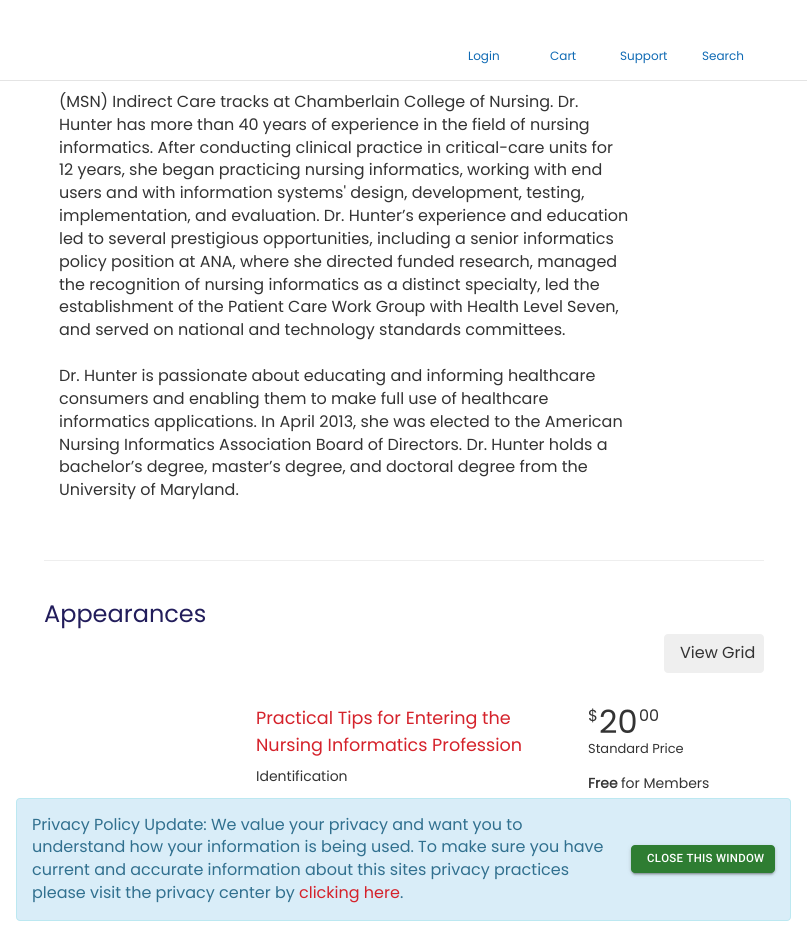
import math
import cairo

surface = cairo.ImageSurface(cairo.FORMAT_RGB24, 807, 946)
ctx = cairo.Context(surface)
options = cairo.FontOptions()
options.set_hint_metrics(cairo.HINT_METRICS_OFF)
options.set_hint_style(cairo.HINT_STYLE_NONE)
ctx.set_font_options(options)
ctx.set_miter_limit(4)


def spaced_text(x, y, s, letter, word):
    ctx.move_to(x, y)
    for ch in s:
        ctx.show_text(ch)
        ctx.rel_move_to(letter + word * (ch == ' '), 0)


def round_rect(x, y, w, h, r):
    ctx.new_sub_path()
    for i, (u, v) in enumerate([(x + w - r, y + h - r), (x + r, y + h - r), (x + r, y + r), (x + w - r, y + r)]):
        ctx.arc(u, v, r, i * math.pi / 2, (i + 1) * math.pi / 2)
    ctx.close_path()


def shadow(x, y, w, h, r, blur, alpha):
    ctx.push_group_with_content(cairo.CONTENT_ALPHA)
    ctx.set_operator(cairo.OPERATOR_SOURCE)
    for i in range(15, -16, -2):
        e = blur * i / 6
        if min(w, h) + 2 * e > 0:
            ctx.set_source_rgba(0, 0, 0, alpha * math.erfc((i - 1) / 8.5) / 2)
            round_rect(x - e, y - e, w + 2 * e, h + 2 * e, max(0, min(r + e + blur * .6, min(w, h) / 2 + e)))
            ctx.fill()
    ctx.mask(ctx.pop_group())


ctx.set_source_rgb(1, 1, 1)
ctx.paint()
ctx.set_source_rgba(0.2, 0.2, 0.2, 0.13)
ctx.rectangle(0, 80, 807, 1)
ctx.fill()
ctx.select_font_face("Poppins")
ctx.set_font_size(12)
ctx.set_source_rgb(0.059, 0.416, 0.706)
ctx.move_to(468, 60)
ctx.show_text("Login")
ctx.move_to(550, 60)
ctx.show_text("Cart")
ctx.move_to(620, 60)
ctx.show_text("Support")
ctx.move_to(702, 60)
ctx.show_text("Search")
ctx.set_font_size(16)
ctx.set_source_rgb(0.2, 0.2, 0.2)
ctx.move_to(59, 107)
ctx.show_text("(MSN) Indirect Care tracks at Chamberlain College of Nursing. Dr.")
ctx.move_to(59, 130)
ctx.show_text("Hunter has more than 40 years of experience in the field of nursing")
ctx.move_to(59, 153)
ctx.show_text("informatics. After conducting clinical practice in critical-care units for")
ctx.move_to(59, 175)
ctx.show_text("12 years, she began practicing nursing informatics, working with end")
ctx.move_to(59, 198)
ctx.show_text("users and with information systems' design, development, testing,")
ctx.move_to(59, 221)
ctx.show_text("implementation, and evaluation. Dr. Hunter’s experience and education")
ctx.move_to(59, 244)
ctx.show_text("led to several prestigious opportunities, including a senior informatics")
ctx.move_to(59, 267)
ctx.show_text("policy position at ANA, where she directed funded research, managed")
ctx.move_to(59, 290)
ctx.show_text("the recognition of nursing informatics as a distinct specialty, led the")
ctx.move_to(59, 312)
ctx.show_text("establishment of the Patient Care Work Group with Health Level Seven,")
ctx.move_to(59, 335)
ctx.show_text("and served on national and technology standards committees.")
ctx.move_to(59, 381)
ctx.show_text("Dr. Hunter is passionate about educating and informing healthcare")
ctx.move_to(59, 404)
ctx.show_text("consumers and enabling them to make full use of healthcare")
ctx.move_to(59, 427)
ctx.show_text("informatics applications. In April 2013, she was elected to the American")
ctx.move_to(59, 450)
ctx.show_text("Nursing Informatics Association Board of Directors. Dr. Hunter holds a")
ctx.move_to(59, 472)
ctx.show_text("bachelor’s degree, master’s degree, and doctoral degree from the")
ctx.move_to(59, 495)
ctx.show_text("University of Maryland.")
ctx.set_source_rgb(0.933, 0.933, 0.933)
ctx.rectangle(44, 560, 720, 1)
ctx.fill()
ctx.set_font_size(24)
ctx.set_source_rgb(0.133, 0.114, 0.357)
ctx.move_to(44, 622)
ctx.show_text("Appearances")
ctx.set_source_rgb(0.937, 0.937, 0.937)
round_rect(664, 634, 100, 39, 4)
ctx.fill()
ctx.set_font_size(16)
ctx.set_source_rgb(0.2, 0.2, 0.2)
ctx.move_to(680, 658)
ctx.show_text("View Grid")
ctx.set_font_size(17.6)
ctx.set_source_rgb(0.835, 0.133, 0.169)
ctx.move_to(256, 724)
ctx.show_text("Practical Tips for Entering the")
ctx.move_to(256, 751)
ctx.show_text("Nursing Informatics Profession")
ctx.set_font_size(14)
ctx.set_source_rgb(0.2, 0.2, 0.2)
ctx.move_to(256, 781)
ctx.show_text("Identification")
ctx.set_font_size(16)
ctx.move_to(588, 721)
ctx.show_text("$")
ctx.set_font_size(32)
ctx.move_to(599, 733)
ctx.show_text("20")
ctx.set_font_size(16)
ctx.move_to(639, 721)
ctx.show_text("00")
ctx.set_font_size(13)
ctx.move_to(588, 753)
ctx.show_text("Standard Price")
ctx.select_font_face("Poppins", cairo.FONT_SLANT_NORMAL, cairo.FONT_WEIGHT_BOLD)
ctx.set_font_size(14)
ctx.move_to(588, 788)
ctx.show_text("Free")
ctx.select_font_face("Poppins")
ctx.move_to(621, 788)
ctx.show_text("for Members")
ctx.set_source_rgb(0.851, 0.929, 0.969)
round_rect(16.5, 798.5, 774, 122, 3.5)
ctx.fill_preserve()
ctx.set_source_rgb(0.737, 0.91, 0.945)
ctx.set_line_width(1)
ctx.stroke()
ctx.set_font_size(16)
ctx.set_source_rgb(0.192, 0.439, 0.561)
ctx.move_to(32, 830)
ctx.show_text("Privacy Policy Update: We value your privacy and want you to")
ctx.move_to(32, 852)
ctx.show_text("understand how your information is being used. To make sure you have")
ctx.move_to(32, 875)
ctx.show_text("current and accurate information about this sites privacy practices")
ctx.move_to(32, 898)
ctx.show_text("please visit the privacy center by")
ctx.set_source_rgb(0.835, 0.133, 0.169)
ctx.move_to(299, 898)
ctx.show_text("clicking here")
ctx.set_source_rgb(0.192, 0.439, 0.561)
ctx.move_to(400, 898)
ctx.show_text(".")
ctx.set_source_rgb(0, 0, 0)
shadow(631, 846, 144, 28, 4, 2.5, 0.12)
shadow(631, 847, 144, 28, 4, 1, 0.14)
shadow(633, 850, 140, 24, 2, 0.5, 0.2)
ctx.set_source_rgb(0.18, 0.49, 0.196)
round_rect(631, 845, 144, 28, 4)
ctx.fill()
ctx.select_font_face("Roboto Medium")
ctx.set_font_size(11.4)
ctx.set_source_rgb(1, 1, 1)
spaced_text(647, 862, "CLOSE THIS WINDOW", 0.3, 0)
surface.write_to_png("page.png")
